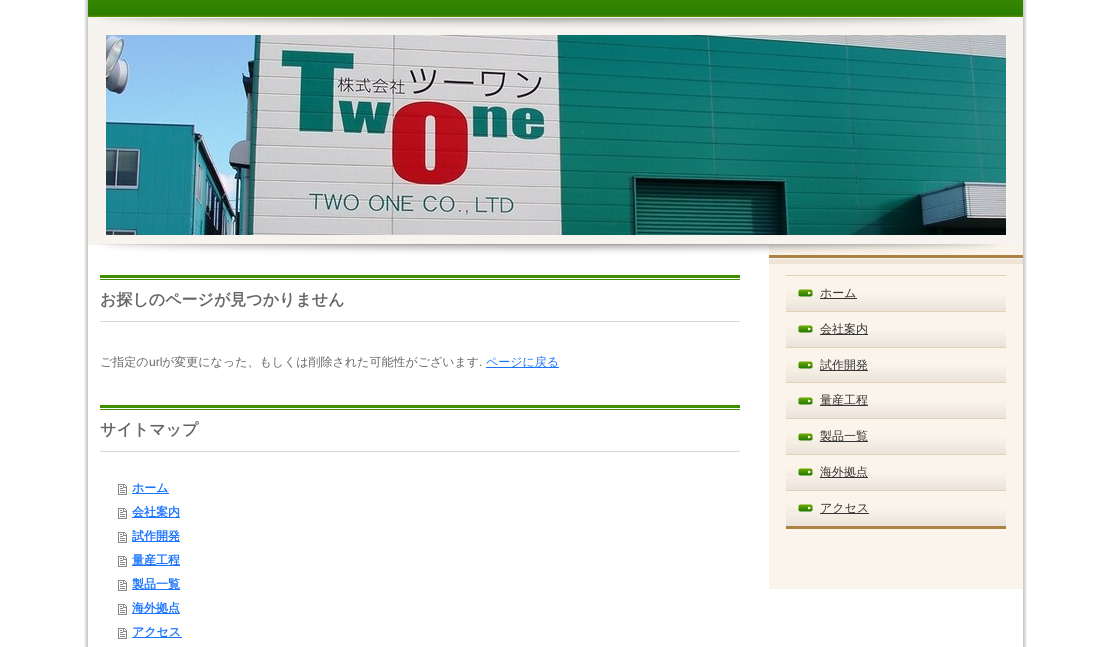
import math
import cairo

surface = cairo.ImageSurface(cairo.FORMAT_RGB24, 1111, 647)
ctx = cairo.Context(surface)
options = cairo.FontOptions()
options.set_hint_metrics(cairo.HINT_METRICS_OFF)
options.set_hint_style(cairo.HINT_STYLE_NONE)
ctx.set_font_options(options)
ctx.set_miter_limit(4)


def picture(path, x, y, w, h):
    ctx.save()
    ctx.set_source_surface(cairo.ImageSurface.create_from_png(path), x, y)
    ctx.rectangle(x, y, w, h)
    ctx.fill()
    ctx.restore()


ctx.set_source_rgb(1, 1, 1)
ctx.paint()
picture("img1.png", 84, 0, 943, 647)
ctx.set_source_rgb(0.965, 0.957, 0.941)
ctx.rectangle(88, 29, 935, 215)
ctx.fill()
picture("img2.png", 88, 0, 935, 29)
picture("img3.png", 88, 244, 935, 11)
picture("img4.png", 106, 35, 900, 200)
picture("img5.png", 100, 275, 640, 5)
ctx.set_source_rgb(0.839, 0.839, 0.796)
ctx.rectangle(100, 321, 640, 1)
ctx.fill()
ctx.select_font_face("WenQuanYi Zen Hei", cairo.FONT_SLANT_NORMAL, cairo.FONT_WEIGHT_BOLD)
ctx.set_font_size(16)
ctx.set_source_rgb(0.4, 0.4, 0.4)
ctx.move_to(100, 305)
ctx.show_text("お探しのページが見つかりません")
ctx.select_font_face("WenQuanYi Zen Hei Medium")
ctx.set_font_size(12)
ctx.move_to(100, 366)
ctx.show_text("ご指定の")
ctx.select_font_face("Liberation Sans")
ctx.move_to(149, 366)
ctx.show_text("url")
ctx.select_font_face("WenQuanYi Zen Hei Medium")
ctx.move_to(162, 366)
ctx.show_text("が変更になった、もしくは削除された可能性がございます")
ctx.select_font_face("Liberation Sans")
ctx.move_to(479, 366)
ctx.show_text(".")
ctx.set_source_rgb(0.106, 0.455, 1)
ctx.rectangle(486, 367, 73, 1)
ctx.fill()
ctx.select_font_face("WenQuanYi Zen Hei Medium")
ctx.move_to(486, 366)
ctx.show_text("ページに戻る")
picture("img5.png", 100, 405, 640, 5)
ctx.set_source_rgb(0.839, 0.839, 0.796)
ctx.rectangle(100, 451, 640, 1)
ctx.fill()
ctx.select_font_face("WenQuanYi Zen Hei", cairo.FONT_SLANT_NORMAL, cairo.FONT_WEIGHT_BOLD)
ctx.set_font_size(16)
ctx.set_source_rgb(0.4, 0.4, 0.4)
ctx.move_to(100, 435)
ctx.show_text("サイトマップ")
picture("img6.png", 118, 484, 9, 11)
ctx.set_source_rgb(0.106, 0.455, 1)
ctx.rectangle(132, 493, 37, 1)
ctx.fill()
ctx.set_font_size(12)
ctx.move_to(132, 492)
ctx.show_text("ホーム")
picture("img6.png", 118, 508, 9, 11)
ctx.rectangle(132, 517, 48, 1)
ctx.fill()
ctx.move_to(132, 516)
ctx.show_text("会社案内")
picture("img6.png", 118, 532, 9, 11)
ctx.rectangle(132, 541, 48, 1)
ctx.fill()
ctx.move_to(132, 540)
ctx.show_text("試作開発")
picture("img6.png", 118, 556, 9, 11)
ctx.rectangle(132, 565, 48, 1)
ctx.fill()
ctx.move_to(132, 564)
ctx.show_text("量産工程")
picture("img6.png", 118, 580, 9, 11)
ctx.rectangle(132, 589, 48, 1)
ctx.fill()
ctx.move_to(132, 588)
ctx.show_text("製品一覧")
picture("img6.png", 118, 604, 9, 11)
ctx.rectangle(132, 613, 48, 1)
ctx.fill()
ctx.move_to(132, 612)
ctx.show_text("海外拠点")
picture("img6.png", 118, 628, 9, 11)
ctx.rectangle(132, 637, 50, 1)
ctx.fill()
ctx.move_to(132, 636)
ctx.show_text("アクセス")
ctx.set_source_rgb(0.98, 0.957, 0.918)
ctx.rectangle(769, 264, 254, 325)
ctx.fill()
picture("img7.png", 769, 255, 254, 9)
ctx.set_source_rgb(0.671, 0.506, 0.275)
ctx.rectangle(786, 526, 220, 3)
ctx.fill()
picture("img8.png", 786, 276, 220, 35)
ctx.set_source_rgb(0.886, 0.82, 0.722)
ctx.rectangle(786, 275, 220, 1)
ctx.fill()
ctx.set_source_rgb(0.2, 0.2, 0.2)
ctx.rectangle(820, 298, 37, 1)
ctx.fill()
ctx.select_font_face("WenQuanYi Zen Hei Medium")
ctx.move_to(820, 297)
ctx.show_text("ホーム")
picture("img8.png", 786, 312, 220, 35)
ctx.set_source_rgb(0.886, 0.82, 0.722)
ctx.rectangle(786, 311, 220, 1)
ctx.fill()
ctx.set_source_rgb(0.2, 0.2, 0.2)
ctx.rectangle(820, 334, 48, 1)
ctx.fill()
ctx.move_to(820, 333)
ctx.show_text("会社案内")
picture("img9.png", 786, 348, 220, 34)
ctx.set_source_rgb(0.886, 0.82, 0.722)
ctx.rectangle(786, 347, 220, 1)
ctx.fill()
ctx.set_source_rgb(0.2, 0.2, 0.2)
ctx.rectangle(820, 370, 48, 1)
ctx.fill()
ctx.move_to(820, 369)
ctx.show_text("試作開発")
picture("img10.png", 786, 383, 220, 35)
ctx.set_source_rgb(0.886, 0.82, 0.722)
ctx.rectangle(786, 382, 220, 1)
ctx.fill()
ctx.set_source_rgb(0.2, 0.2, 0.2)
ctx.rectangle(820, 405, 48, 1)
ctx.fill()
ctx.move_to(820, 404)
ctx.show_text("量産工程")
picture("img10.png", 786, 419, 220, 35)
ctx.set_source_rgb(0.886, 0.82, 0.722)
ctx.rectangle(786, 418, 220, 1)
ctx.fill()
ctx.set_source_rgb(0.2, 0.2, 0.2)
ctx.rectangle(820, 441, 48, 1)
ctx.fill()
ctx.move_to(820, 440)
ctx.show_text("製品一覧")
picture("img8.png", 786, 455, 220, 35)
ctx.set_source_rgb(0.886, 0.82, 0.722)
ctx.rectangle(786, 454, 220, 1)
ctx.fill()
ctx.set_source_rgb(0.2, 0.2, 0.2)
ctx.rectangle(820, 477, 48, 1)
ctx.fill()
ctx.move_to(820, 476)
ctx.show_text("海外拠点")
picture("img8.png", 786, 491, 220, 35)
ctx.set_source_rgb(0.886, 0.82, 0.722)
ctx.rectangle(786, 490, 220, 1)
ctx.fill()
ctx.set_source_rgb(0.2, 0.2, 0.2)
ctx.rectangle(820, 513, 49, 1)
ctx.fill()
ctx.move_to(820, 512)
ctx.show_text("アクセス")
surface.write_to_png("page.png")
